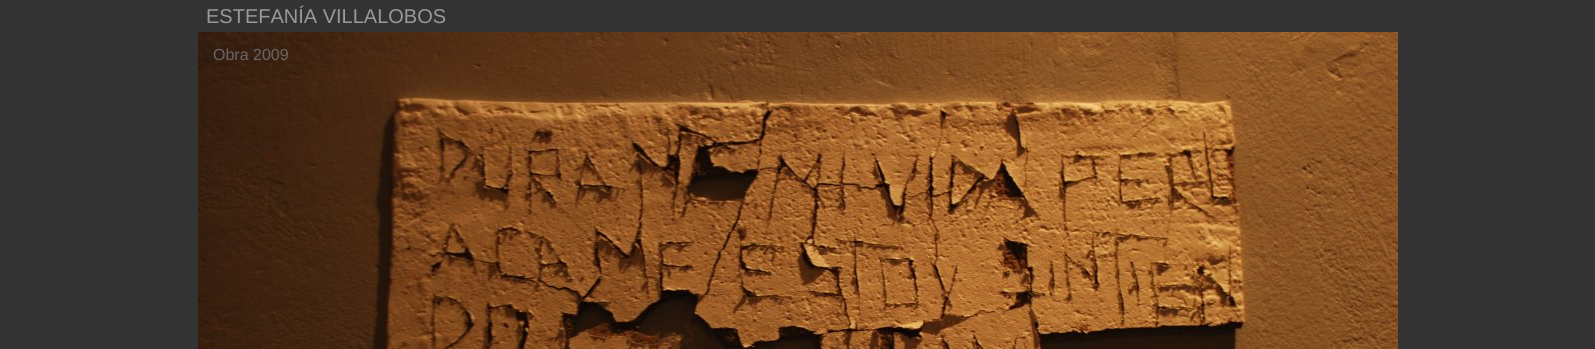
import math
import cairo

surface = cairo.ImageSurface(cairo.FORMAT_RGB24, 1595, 349)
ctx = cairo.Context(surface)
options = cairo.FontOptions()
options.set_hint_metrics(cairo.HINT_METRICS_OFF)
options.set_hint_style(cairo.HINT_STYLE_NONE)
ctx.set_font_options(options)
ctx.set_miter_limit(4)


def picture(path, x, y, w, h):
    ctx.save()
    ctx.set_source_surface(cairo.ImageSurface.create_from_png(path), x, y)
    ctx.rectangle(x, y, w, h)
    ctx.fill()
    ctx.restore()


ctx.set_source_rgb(0.2, 0.2, 0.2)
ctx.paint()
ctx.select_font_face("Liberation Sans")
ctx.set_font_size(20)
ctx.set_source_rgb(0.6, 0.6, 0.6)
ctx.move_to(206, 23)
ctx.show_text("ESTEFANÍA VILLALOBOS")
picture("img1.png", 198, 32, 1200, 317)
ctx.set_font_size(16)
ctx.set_source_rgb(0.4, 0.4, 0.4)
ctx.move_to(213, 60)
ctx.show_text("Obra 2009")
surface.write_to_png("page.png")
